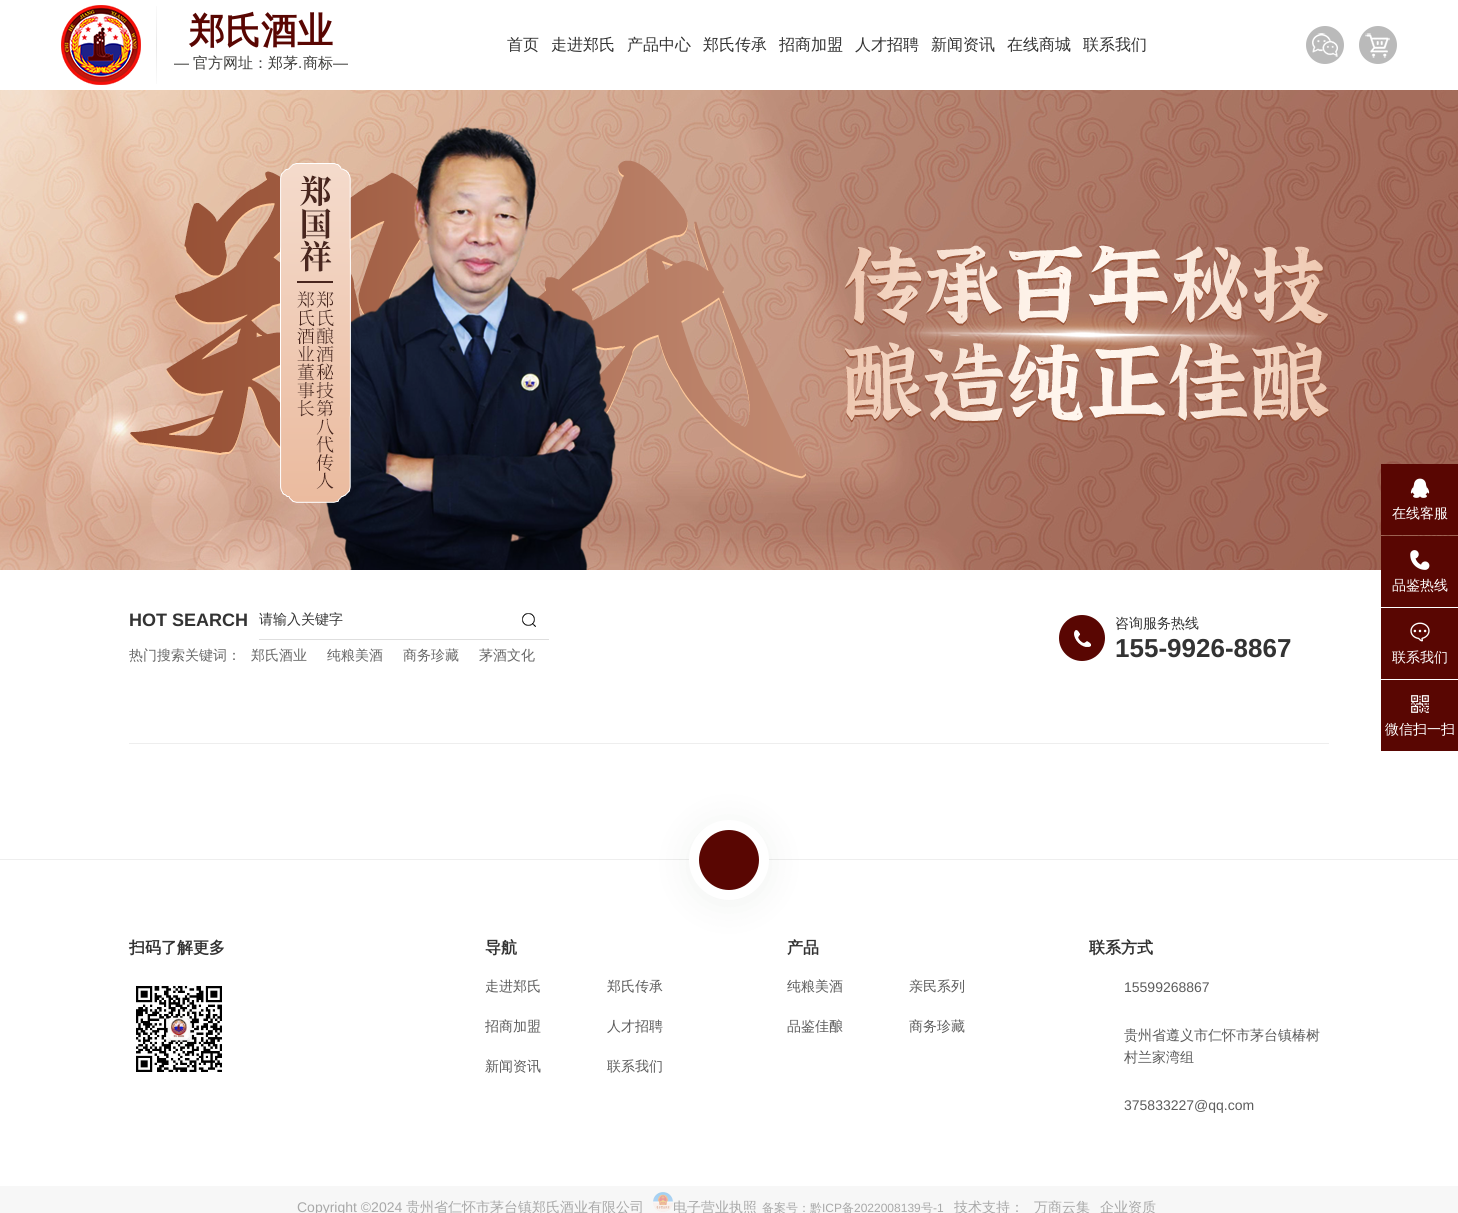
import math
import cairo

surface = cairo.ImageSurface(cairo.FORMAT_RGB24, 1458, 1213)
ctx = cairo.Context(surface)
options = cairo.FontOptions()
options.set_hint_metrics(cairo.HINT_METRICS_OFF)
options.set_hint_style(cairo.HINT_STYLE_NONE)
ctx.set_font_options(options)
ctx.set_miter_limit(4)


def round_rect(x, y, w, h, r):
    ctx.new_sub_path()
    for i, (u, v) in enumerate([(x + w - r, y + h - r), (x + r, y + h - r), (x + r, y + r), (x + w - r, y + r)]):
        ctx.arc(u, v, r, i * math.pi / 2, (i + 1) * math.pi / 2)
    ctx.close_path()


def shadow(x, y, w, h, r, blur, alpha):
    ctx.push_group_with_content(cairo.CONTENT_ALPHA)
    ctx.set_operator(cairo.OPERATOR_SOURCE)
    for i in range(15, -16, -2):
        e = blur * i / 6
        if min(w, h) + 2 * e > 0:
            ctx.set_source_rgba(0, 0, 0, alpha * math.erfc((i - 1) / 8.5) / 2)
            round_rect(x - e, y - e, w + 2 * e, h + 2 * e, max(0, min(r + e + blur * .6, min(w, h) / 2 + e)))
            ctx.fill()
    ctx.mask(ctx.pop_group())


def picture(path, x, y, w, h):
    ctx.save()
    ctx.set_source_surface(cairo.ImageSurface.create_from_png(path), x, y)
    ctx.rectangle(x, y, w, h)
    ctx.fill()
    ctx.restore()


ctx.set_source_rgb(0.965, 0.965, 0.965)
ctx.paint()
ctx.set_source_rgb(1, 1, 1)
ctx.rectangle(0, 0, 1458, 90)
ctx.fill()
picture("img1.png", 61, 5, 80, 80)
gradient = cairo.LinearGradient(157, 84, 157, 6)
gradient.add_color_stop_rgba(0, 0.98, 0.98, 0.98, 1)
gradient.add_color_stop_rgba(0.5, 0.918, 0.918, 0.918, 1)
gradient.add_color_stop_rgba(1, 0.98, 0.98, 0.98, 1)
ctx.set_source(gradient)
ctx.rectangle(156, 6, 1, 78)
ctx.fill()
ctx.select_font_face("WenQuanYi Zen Hei", cairo.FONT_SLANT_NORMAL, cairo.FONT_WEIGHT_BOLD)
ctx.set_font_size(36)
ctx.set_source_rgb(0.349, 0.024, 0.008)
ctx.move_to(189, 43)
ctx.show_text("郑氏酒业")
ctx.select_font_face("Liberation Sans")
ctx.set_font_size(15)
ctx.set_source_rgb(0.243, 0.243, 0.235)
ctx.move_to(174, 68)
ctx.show_text("—")
ctx.select_font_face("WenQuanYi Zen Hei Medium")
ctx.move_to(193, 68)
ctx.show_text("官方网址：郑茅")
ctx.move_to(303, 68)
ctx.show_text("商标")
ctx.select_font_face("Liberation Sans")
ctx.move_to(333, 68)
ctx.show_text("—")
ctx.move_to(298, 68)
ctx.show_text(".")
ctx.select_font_face("WenQuanYi Zen Hei Medium")
ctx.set_font_size(16)
ctx.set_source_rgb(0.2, 0.2, 0.2)
ctx.move_to(507, 50)
ctx.show_text("首页")
ctx.move_to(551, 50)
ctx.show_text("走进郑氏")
ctx.move_to(627, 50)
ctx.show_text("产品中心")
ctx.move_to(703, 50)
ctx.show_text("郑氏传承")
ctx.move_to(779, 50)
ctx.show_text("招商加盟")
ctx.move_to(855, 50)
ctx.show_text("人才招聘")
ctx.move_to(931, 50)
ctx.show_text("新闻资讯")
ctx.move_to(1007, 50)
ctx.show_text("在线商城")
ctx.move_to(1083, 50)
ctx.show_text("联系我们")
ctx.set_source_rgb(0.729, 0.729, 0.729)
ctx.new_path()
ctx.arc(1325, 45, 19, 0, 2 * math.pi)
ctx.fill()
picture("img2.png", 1312, 33, 26, 24)
ctx.arc(1378, 45, 19, 0, 2 * math.pi)
ctx.fill()
picture("img3.png", 1365, 33, 25, 25)
picture("img4.png", 0, 90, 1458, 480)
ctx.set_source_rgb(1, 1, 1)
ctx.rectangle(0, 570, 1458, 289)
ctx.fill()
ctx.select_font_face("Liberation Sans", cairo.FONT_SLANT_NORMAL, cairo.FONT_WEIGHT_BOLD)
ctx.set_font_size(18)
ctx.set_source_rgb(0.2, 0.2, 0.2)
ctx.move_to(129, 626)
ctx.show_text("HOT SEARCH")
ctx.set_source_rgb(0.871, 0.871, 0.871)
ctx.rectangle(259, 639, 290, 1)
ctx.fill()
ctx.select_font_face("WenQuanYi Zen Hei Medium")
ctx.set_font_size(14)
ctx.set_source_rgb(0.2, 0.2, 0.2)
ctx.move_to(259, 624)
ctx.show_text("请输入关键字")
picture("img5.png", 522, 613, 14, 14)
ctx.set_source_rgb(0.4, 0.4, 0.4)
ctx.move_to(129, 660)
ctx.show_text("热门搜索关键词：")
ctx.move_to(251, 660)
ctx.show_text("郑氏酒业")
ctx.move_to(327, 660)
ctx.show_text("纯粮美酒")
ctx.move_to(403, 660)
ctx.show_text("商务珍藏")
ctx.move_to(479, 660)
ctx.show_text("茅酒文化")
ctx.set_source_rgb(0.349, 0.024, 0.008)
ctx.new_path()
ctx.arc(1082, 638, 23, 0, 2 * math.pi)
ctx.fill()
picture("img6.png", 1074, 630, 17, 17)
ctx.set_source_rgb(0.2, 0.2, 0.2)
ctx.move_to(1115, 628)
ctx.show_text("咨询服务热线")
ctx.select_font_face("Liberation Sans", cairo.FONT_SLANT_NORMAL, cairo.FONT_WEIGHT_BOLD)
ctx.set_font_size(26)
ctx.move_to(1115, 657)
ctx.show_text("155-9926-8867")
ctx.set_source_rgb(0.349, 0.024, 0.008)
ctx.rectangle(1381, 464, 77, 71)
ctx.fill()
picture("img7.png", 1410, 478, 20, 20)
ctx.select_font_face("WenQuanYi Zen Hei Medium")
ctx.set_font_size(14)
ctx.set_source_rgb(1, 1, 1)
ctx.move_to(1392, 518)
ctx.show_text("在线客服")
ctx.set_source_rgb(0.349, 0.024, 0.008)
ctx.rectangle(1381, 536, 77, 71)
ctx.fill()
picture("img8.png", 1410, 550, 20, 20)
ctx.set_source_rgb(1, 1, 1)
ctx.move_to(1392, 590)
ctx.show_text("品鉴热线")
ctx.set_source_rgb(0.349, 0.024, 0.008)
ctx.rectangle(1381, 608, 77, 71)
ctx.fill()
picture("img9.png", 1410, 622, 20, 20)
ctx.set_source_rgb(1, 1, 1)
ctx.move_to(1392, 662)
ctx.show_text("联系我们")
ctx.set_source_rgb(0.349, 0.024, 0.008)
ctx.rectangle(1381, 680, 77, 71)
ctx.fill()
picture("img10.png", 1411, 695, 18, 18)
ctx.set_source_rgb(1, 1, 1)
ctx.move_to(1385, 734)
ctx.show_text("微信扫一扫")
ctx.set_source_rgb(0.933, 0.933, 0.933)
ctx.rectangle(129, 743, 1200, 1)
ctx.fill()
ctx.set_source_rgb(1, 1, 1)
ctx.rectangle(0, 860, 1458, 326)
ctx.fill()
ctx.set_source_rgb(0.933, 0.933, 0.933)
ctx.rectangle(0, 859, 1458, 1)
ctx.fill()
ctx.set_source_rgb(0.051, 0.145, 0)
shadow(689, 824, 80, 80, 40, 20, 0.06)
ctx.set_source_rgb(1, 1, 1)
ctx.arc(729, 860, 40, 0, 2 * math.pi)
ctx.fill()
ctx.set_source_rgb(0.349, 0.024, 0.008)
ctx.arc(729, 860, 30, 0, 2 * math.pi)
ctx.fill()
ctx.select_font_face("WenQuanYi Zen Hei", cairo.FONT_SLANT_NORMAL, cairo.FONT_WEIGHT_BOLD)
ctx.set_font_size(16)
ctx.set_source_rgb(0.2, 0.2, 0.2)
ctx.move_to(129, 953)
ctx.show_text("扫码了解更多")
picture("img11.png", 136, 985, 86, 87)
ctx.move_to(485, 953)
ctx.show_text("导航")
ctx.select_font_face("WenQuanYi Zen Hei Medium")
ctx.set_font_size(14)
ctx.set_source_rgb(0.361, 0.361, 0.361)
ctx.move_to(485, 991)
ctx.show_text("走进郑氏")
ctx.move_to(607, 991)
ctx.show_text("郑氏传承")
ctx.save()
ctx.rectangle(485, 1011, 122, 30)
ctx.clip()
ctx.move_to(485, 1031)
ctx.show_text("招商加盟")
ctx.restore()
ctx.move_to(607, 1031)
ctx.show_text("人才招聘")
ctx.move_to(485, 1071)
ctx.show_text("新闻资讯")
ctx.move_to(607, 1071)
ctx.show_text("联系我们")
ctx.select_font_face("WenQuanYi Zen Hei", cairo.FONT_SLANT_NORMAL, cairo.FONT_WEIGHT_BOLD)
ctx.set_font_size(16)
ctx.set_source_rgb(0.2, 0.2, 0.2)
ctx.move_to(787, 953)
ctx.show_text("产品")
ctx.select_font_face("WenQuanYi Zen Hei Medium")
ctx.set_font_size(14)
ctx.set_source_rgb(0.361, 0.361, 0.361)
ctx.move_to(787, 991)
ctx.show_text("纯粮美酒")
ctx.move_to(909, 991)
ctx.show_text("亲民系列")
ctx.move_to(787, 1031)
ctx.show_text("品鉴佳酿")
ctx.move_to(909, 1031)
ctx.show_text("商务珍藏")
ctx.select_font_face("WenQuanYi Zen Hei", cairo.FONT_SLANT_NORMAL, cairo.FONT_WEIGHT_BOLD)
ctx.set_font_size(16)
ctx.set_source_rgb(0.2, 0.2, 0.2)
ctx.move_to(1089, 953)
ctx.show_text("联系方式")
ctx.select_font_face("Liberation Sans")
ctx.set_font_size(14)
ctx.set_source_rgb(0.361, 0.361, 0.361)
ctx.move_to(1124, 992)
ctx.show_text("15599268867")
ctx.select_font_face("WenQuanYi Zen Hei Medium")
ctx.move_to(1124, 1040)
ctx.show_text("贵州省遵义市仁怀市茅台镇椿树")
ctx.move_to(1124, 1062)
ctx.show_text("村兰家湾组")
ctx.select_font_face("Liberation Sans")
ctx.move_to(1124, 1110)
ctx.show_text("375833227@qq.com")
ctx.set_source_rgb(0.659, 0.659, 0.659)
ctx.move_to(297, 1212)
ctx.show_text("Copyright ©2024")
ctx.select_font_face("WenQuanYi Zen Hei Medium")
ctx.move_to(406, 1212)
ctx.show_text("贵州省仁怀市茅台镇郑氏酒业有限公司")
picture("img12.png", 653, 1192, 20, 20)
ctx.move_to(673, 1212)
ctx.show_text("电子营业执照")
ctx.set_font_size(12)
ctx.move_to(762, 1212)
ctx.show_text("备案号：黔")
ctx.select_font_face("Liberation Sans")
ctx.move_to(822, 1212)
ctx.show_text("ICP")
ctx.select_font_face("WenQuanYi Zen Hei Medium")
ctx.move_to(842, 1212)
ctx.show_text("备")
ctx.select_font_face("Liberation Sans")
ctx.move_to(854, 1212)
ctx.show_text("2022008139")
ctx.select_font_face("WenQuanYi Zen Hei Medium")
ctx.move_to(921, 1212)
ctx.show_text("号")
ctx.select_font_face("Liberation Sans")
ctx.move_to(933, 1212)
ctx.show_text("-1")
ctx.select_font_face("WenQuanYi Zen Hei Medium")
ctx.set_font_size(14)
ctx.move_to(954, 1212)
ctx.show_text("技术支持：")
ctx.move_to(1034, 1212)
ctx.show_text("万商云集")
ctx.move_to(1100, 1212)
ctx.show_text("企业资质")
surface.write_to_png("page.png")
